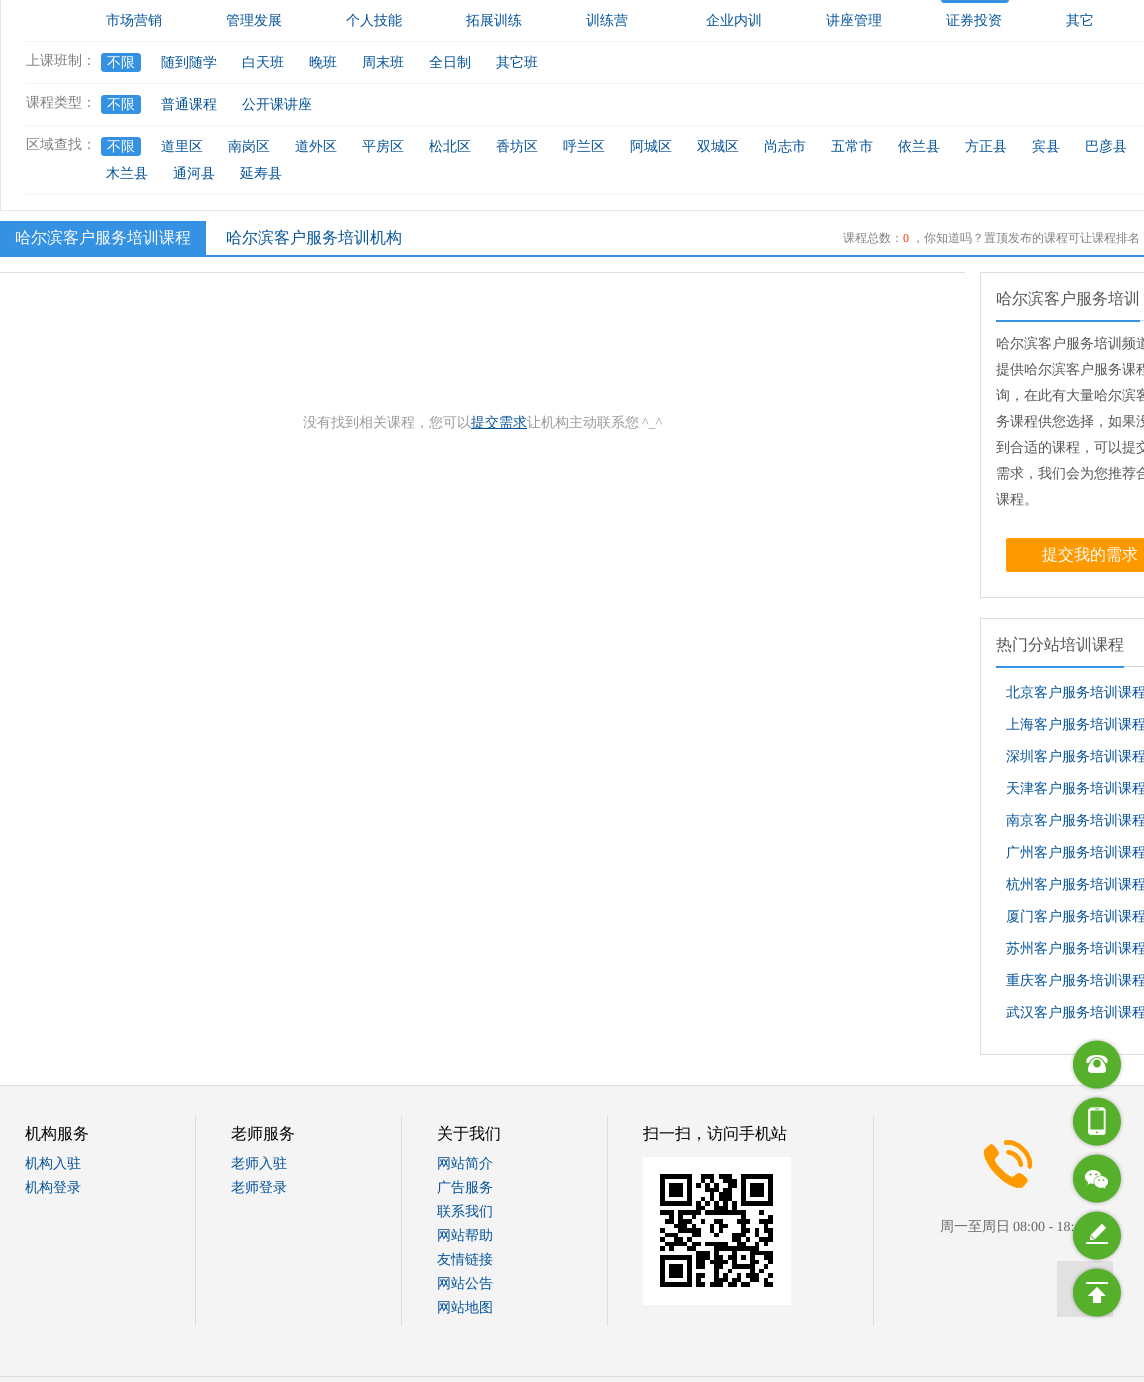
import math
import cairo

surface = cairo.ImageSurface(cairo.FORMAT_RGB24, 1144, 1382)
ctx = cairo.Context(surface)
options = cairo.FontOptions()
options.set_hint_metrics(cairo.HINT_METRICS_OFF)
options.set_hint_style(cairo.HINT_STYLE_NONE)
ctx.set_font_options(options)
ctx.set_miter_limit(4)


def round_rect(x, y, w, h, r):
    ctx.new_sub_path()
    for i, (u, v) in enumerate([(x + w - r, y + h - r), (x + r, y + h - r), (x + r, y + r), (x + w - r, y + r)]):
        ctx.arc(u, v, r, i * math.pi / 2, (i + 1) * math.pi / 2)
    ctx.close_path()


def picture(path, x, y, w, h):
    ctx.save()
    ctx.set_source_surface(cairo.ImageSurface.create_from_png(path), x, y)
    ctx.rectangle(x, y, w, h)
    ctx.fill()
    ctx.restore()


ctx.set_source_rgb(1, 1, 1)
ctx.paint()
ctx.rectangle(0.5, -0.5, 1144, 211)
ctx.set_source_rgb(0.89, 0.906, 0.914)
ctx.set_line_width(1)
ctx.stroke()
ctx.set_source_rgb(0.957, 0.957, 0.957)
ctx.rectangle(26, 41, 1118, 1)
ctx.fill()
ctx.set_source_rgb(0.208, 0.573, 0.886)
round_rect(941, -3, 68, 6, 3)
ctx.fill()
ctx.select_font_face("WenQuanYi Zen Hei Medium")
ctx.set_font_size(14)
ctx.set_source_rgb(0.016, 0.322, 0.604)
ctx.move_to(106, 25)
ctx.show_text("市场营销")
ctx.move_to(226, 25)
ctx.show_text("管理发展")
ctx.move_to(346, 25)
ctx.show_text("个人技能")
ctx.move_to(466, 25)
ctx.show_text("拓展训练")
ctx.move_to(586, 25)
ctx.show_text("训练营")
ctx.move_to(706, 25)
ctx.show_text("企业内训")
ctx.move_to(826, 25)
ctx.show_text("讲座管理")
ctx.move_to(946, 25)
ctx.show_text("证券投资")
ctx.move_to(1066, 25)
ctx.show_text("其它")
ctx.set_source_rgb(0.957, 0.957, 0.957)
ctx.rectangle(26, 83, 1118, 1)
ctx.fill()
ctx.set_source_rgb(0.502, 0.502, 0.502)
ctx.move_to(26, 65)
ctx.show_text("上课班制：")
ctx.set_source_rgb(0.208, 0.573, 0.886)
round_rect(101, 53, 40, 19, 3)
ctx.fill()
ctx.set_source_rgb(1, 1, 1)
ctx.move_to(107, 67)
ctx.show_text("不限")
ctx.set_source_rgb(0.016, 0.322, 0.604)
ctx.move_to(161, 67)
ctx.show_text("随到随学")
ctx.move_to(242, 67)
ctx.show_text("白天班")
ctx.move_to(309, 67)
ctx.show_text("晚班")
ctx.move_to(362, 67)
ctx.show_text("周末班")
ctx.move_to(429, 67)
ctx.show_text("全日制")
ctx.move_to(496, 67)
ctx.show_text("其它班")
ctx.set_source_rgb(0.957, 0.957, 0.957)
ctx.rectangle(26, 125, 1118, 1)
ctx.fill()
ctx.set_source_rgb(0.502, 0.502, 0.502)
ctx.move_to(26, 107)
ctx.show_text("课程类型：")
ctx.set_source_rgb(0.208, 0.573, 0.886)
round_rect(101, 95, 40, 19, 3)
ctx.fill()
ctx.set_source_rgb(1, 1, 1)
ctx.move_to(107, 109)
ctx.show_text("不限")
ctx.set_source_rgb(0.016, 0.322, 0.604)
ctx.move_to(161, 109)
ctx.show_text("普通课程")
ctx.move_to(242, 109)
ctx.show_text("公开课讲座")
ctx.set_source_rgb(0.957, 0.957, 0.957)
ctx.rectangle(26, 194, 1118, 1)
ctx.fill()
ctx.set_source_rgb(0.502, 0.502, 0.502)
ctx.move_to(26, 149)
ctx.show_text("区域查找：")
ctx.set_source_rgb(0.208, 0.573, 0.886)
round_rect(101, 137, 40, 19, 3)
ctx.fill()
ctx.set_source_rgb(1, 1, 1)
ctx.move_to(107, 151)
ctx.show_text("不限")
ctx.set_source_rgb(0.016, 0.322, 0.604)
ctx.move_to(161, 151)
ctx.show_text("道里区")
ctx.move_to(228, 151)
ctx.show_text("南岗区")
ctx.move_to(295, 151)
ctx.show_text("道外区")
ctx.move_to(362, 151)
ctx.show_text("平房区")
ctx.move_to(429, 151)
ctx.show_text("松北区")
ctx.move_to(496, 151)
ctx.show_text("香坊区")
ctx.move_to(563, 151)
ctx.show_text("呼兰区")
ctx.move_to(630, 151)
ctx.show_text("阿城区")
ctx.move_to(697, 151)
ctx.show_text("双城区")
ctx.move_to(764, 151)
ctx.show_text("尚志市")
ctx.move_to(831, 151)
ctx.show_text("五常市")
ctx.move_to(898, 151)
ctx.show_text("依兰县")
ctx.move_to(965, 151)
ctx.show_text("方正县")
ctx.move_to(1032, 151)
ctx.show_text("宾县")
ctx.move_to(1085, 151)
ctx.show_text("巴彦县")
ctx.move_to(106, 178)
ctx.show_text("木兰县")
ctx.move_to(173, 178)
ctx.show_text("通河县")
ctx.move_to(240, 178)
ctx.show_text("延寿县")
ctx.set_source_rgb(0.208, 0.573, 0.886)
ctx.rectangle(0, 255, 1144, 2)
ctx.fill()
ctx.rectangle(0, 221, 206, 34)
ctx.fill()
ctx.set_font_size(16)
ctx.set_source_rgb(1, 1, 1)
ctx.move_to(15, 243)
ctx.show_text("哈尔滨客户服务培训课程")
ctx.set_source_rgb(0.016, 0.322, 0.604)
ctx.move_to(226, 243)
ctx.show_text("哈尔滨客户服务培训机构")
ctx.set_font_size(12)
ctx.set_source_rgb(0.502, 0.502, 0.502)
ctx.move_to(843, 242)
ctx.show_text("课程总数：")
ctx.select_font_face("Liberation Serif")
ctx.set_source_rgb(1, 0.2, 0)
ctx.move_to(903, 242)
ctx.show_text("0")
ctx.select_font_face("WenQuanYi Zen Hei Medium")
ctx.set_source_rgb(0.502, 0.502, 0.502)
ctx.move_to(912, 242)
ctx.show_text("，你知道吗？置顶发布的课程可让课程排名")
ctx.set_source_rgb(0.871, 0.871, 0.871)
ctx.rectangle(0, 272, 965, 1)
ctx.fill()
ctx.set_font_size(14)
ctx.set_source_rgb(0.6, 0.6, 0.6)
ctx.move_to(303, 427)
ctx.show_text("没有找到相关课程，您可以")
ctx.set_source_rgb(0.016, 0.322, 0.604)
ctx.rectangle(471, 428, 56, 1)
ctx.fill()
ctx.move_to(471, 427)
ctx.show_text("提交需求")
ctx.set_source_rgb(0.6, 0.6, 0.6)
ctx.move_to(527, 427)
ctx.show_text("让机构主动联系您")
ctx.select_font_face("Liberation Serif")
ctx.move_to(642, 427)
ctx.show_text("^_^")
ctx.rectangle(980.5, 272.5, 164, 325)
ctx.set_source_rgb(0.867, 0.867, 0.867)
ctx.stroke()
ctx.set_source_rgb(0.831, 0.831, 0.831)
ctx.rectangle(1140, 320, 4, 1)
ctx.fill()
ctx.set_source_rgb(0.208, 0.573, 0.886)
ctx.rectangle(996, 320, 144, 2)
ctx.fill()
ctx.select_font_face("WenQuanYi Zen Hei Medium")
ctx.set_font_size(16)
ctx.set_source_rgb(0.333, 0.333, 0.333)
ctx.move_to(996, 304)
ctx.show_text("哈尔滨客户服务培训")
ctx.set_font_size(14)
ctx.move_to(996, 348)
ctx.show_text("哈尔滨客户服务培训频道")
ctx.move_to(996, 374)
ctx.show_text("提供哈尔滨客户服务课程")
ctx.move_to(996, 400)
ctx.show_text("询，在此有大量哈尔滨客")
ctx.move_to(996, 426)
ctx.show_text("务课程供您选择，如果没")
ctx.move_to(996, 452)
ctx.show_text("到合适的课程，可以提交")
ctx.move_to(996, 478)
ctx.show_text("需求，我们会为您推荐合")
ctx.move_to(996, 504)
ctx.show_text("课程。")
ctx.set_source_rgb(1, 0.6, 0)
round_rect(1006, 538, 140, 34, 2)
ctx.fill()
ctx.set_font_size(16)
ctx.set_source_rgb(1, 1, 1)
ctx.move_to(1042, 560)
ctx.show_text("提交我的需求")
ctx.rectangle(980.5, 618.5, 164, 436)
ctx.set_source_rgb(0.867, 0.867, 0.867)
ctx.stroke()
ctx.set_source_rgb(0.831, 0.831, 0.831)
ctx.rectangle(1124, 666, 20, 1)
ctx.fill()
ctx.set_source_rgb(0.208, 0.573, 0.886)
ctx.rectangle(996, 666, 128, 2)
ctx.fill()
ctx.set_source_rgb(0.333, 0.333, 0.333)
ctx.move_to(996, 650)
ctx.show_text("热门分站培训课程")
ctx.set_font_size(14)
ctx.set_source_rgb(0.016, 0.322, 0.604)
ctx.move_to(1006, 697)
ctx.show_text("北京客户服务培训课程")
ctx.move_to(1006, 729)
ctx.show_text("上海客户服务培训课程")
ctx.move_to(1006, 761)
ctx.show_text("深圳客户服务培训课程")
ctx.move_to(1006, 793)
ctx.show_text("天津客户服务培训课程")
ctx.move_to(1006, 825)
ctx.show_text("南京客户服务培训课程")
ctx.move_to(1006, 857)
ctx.show_text("广州客户服务培训课程")
ctx.move_to(1006, 889)
ctx.show_text("杭州客户服务培训课程")
ctx.move_to(1006, 921)
ctx.show_text("厦门客户服务培训课程")
ctx.move_to(1006, 953)
ctx.show_text("苏州客户服务培训课程")
ctx.move_to(1006, 985)
ctx.show_text("重庆客户服务培训课程")
ctx.move_to(1006, 1017)
ctx.show_text("武汉客户服务培训课程")
ctx.set_source_rgb(0.957, 0.957, 0.957)
ctx.rectangle(0, 1086, 1144, 296)
ctx.fill()
ctx.set_source_rgb(0.867, 0.867, 0.867)
ctx.rectangle(0, 1085, 1144, 1)
ctx.fill()
ctx.rectangle(195, 1116, 1, 210)
ctx.fill()
ctx.set_font_size(16)
ctx.set_source_rgb(0, 0, 0)
ctx.move_to(25, 1139)
ctx.show_text("机构服务")
ctx.set_font_size(14)
ctx.set_source_rgb(0.016, 0.322, 0.604)
ctx.move_to(25, 1168)
ctx.show_text("机构入驻")
ctx.move_to(25, 1192)
ctx.show_text("机构登录")
ctx.set_source_rgb(0.867, 0.867, 0.867)
ctx.rectangle(401, 1116, 1, 210)
ctx.fill()
ctx.set_font_size(16)
ctx.set_source_rgb(0, 0, 0)
ctx.move_to(231, 1139)
ctx.show_text("老师服务")
ctx.set_font_size(14)
ctx.set_source_rgb(0.016, 0.322, 0.604)
ctx.move_to(231, 1168)
ctx.show_text("老师入驻")
ctx.move_to(231, 1192)
ctx.show_text("老师登录")
ctx.set_source_rgb(0.867, 0.867, 0.867)
ctx.rectangle(607, 1116, 1, 210)
ctx.fill()
ctx.set_font_size(16)
ctx.set_source_rgb(0, 0, 0)
ctx.move_to(437, 1139)
ctx.show_text("关于我们")
ctx.set_font_size(14)
ctx.set_source_rgb(0.016, 0.322, 0.604)
ctx.move_to(437, 1168)
ctx.show_text("网站简介")
ctx.move_to(437, 1192)
ctx.show_text("广告服务")
ctx.move_to(437, 1216)
ctx.show_text("联系我们")
ctx.move_to(437, 1240)
ctx.show_text("网站帮助")
ctx.move_to(437, 1264)
ctx.show_text("友情链接")
ctx.move_to(437, 1288)
ctx.show_text("网站公告")
ctx.move_to(437, 1312)
ctx.show_text("网站地图")
ctx.set_source_rgb(0.867, 0.867, 0.867)
ctx.rectangle(873, 1116, 1, 210)
ctx.fill()
ctx.set_font_size(16)
ctx.set_source_rgb(0, 0, 0)
ctx.move_to(643, 1139)
ctx.show_text("扫一扫，访问手机站")
picture("img1.png", 643, 1157, 148, 148)
picture("img2.png", 983, 1140, 50, 48)
ctx.set_font_size(14)
ctx.set_source_rgb(0.4, 0.4, 0.4)
ctx.move_to(940, 1231)
ctx.show_text("周一至周日")
ctx.select_font_face("Liberation Serif")
ctx.move_to(1013, 1231)
ctx.show_text("08:00 - 18:")
ctx.set_source_rgb(0.867, 0.867, 0.867)
ctx.rectangle(0, 1376, 1144, 1)
ctx.fill()
picture("img3.png", 1070, 1038, 54, 54)
picture("img4.png", 1086, 1055, 22, 18)
picture("img5.png", 1070, 1095, 54, 54)
picture("img6.png", 1088, 1107, 18, 28)
picture("img5.png", 1070, 1152, 54, 54)
picture("img7.png", 1085, 1170, 23, 19)
ctx.set_source_rgb(0.914, 0.914, 0.914)
ctx.rectangle(1057, 1261, 56, 56)
ctx.fill()
picture("img12.png", 1057, 1261, 56, 56)
picture("img8.png", 1070, 1209, 54, 54)
picture("img9.png", 1086, 1223, 22, 21)
picture("img10.png", 1070, 1266, 54, 54)
picture("img11.png", 1086, 1282, 22, 21)
surface.write_to_png("page.png")
